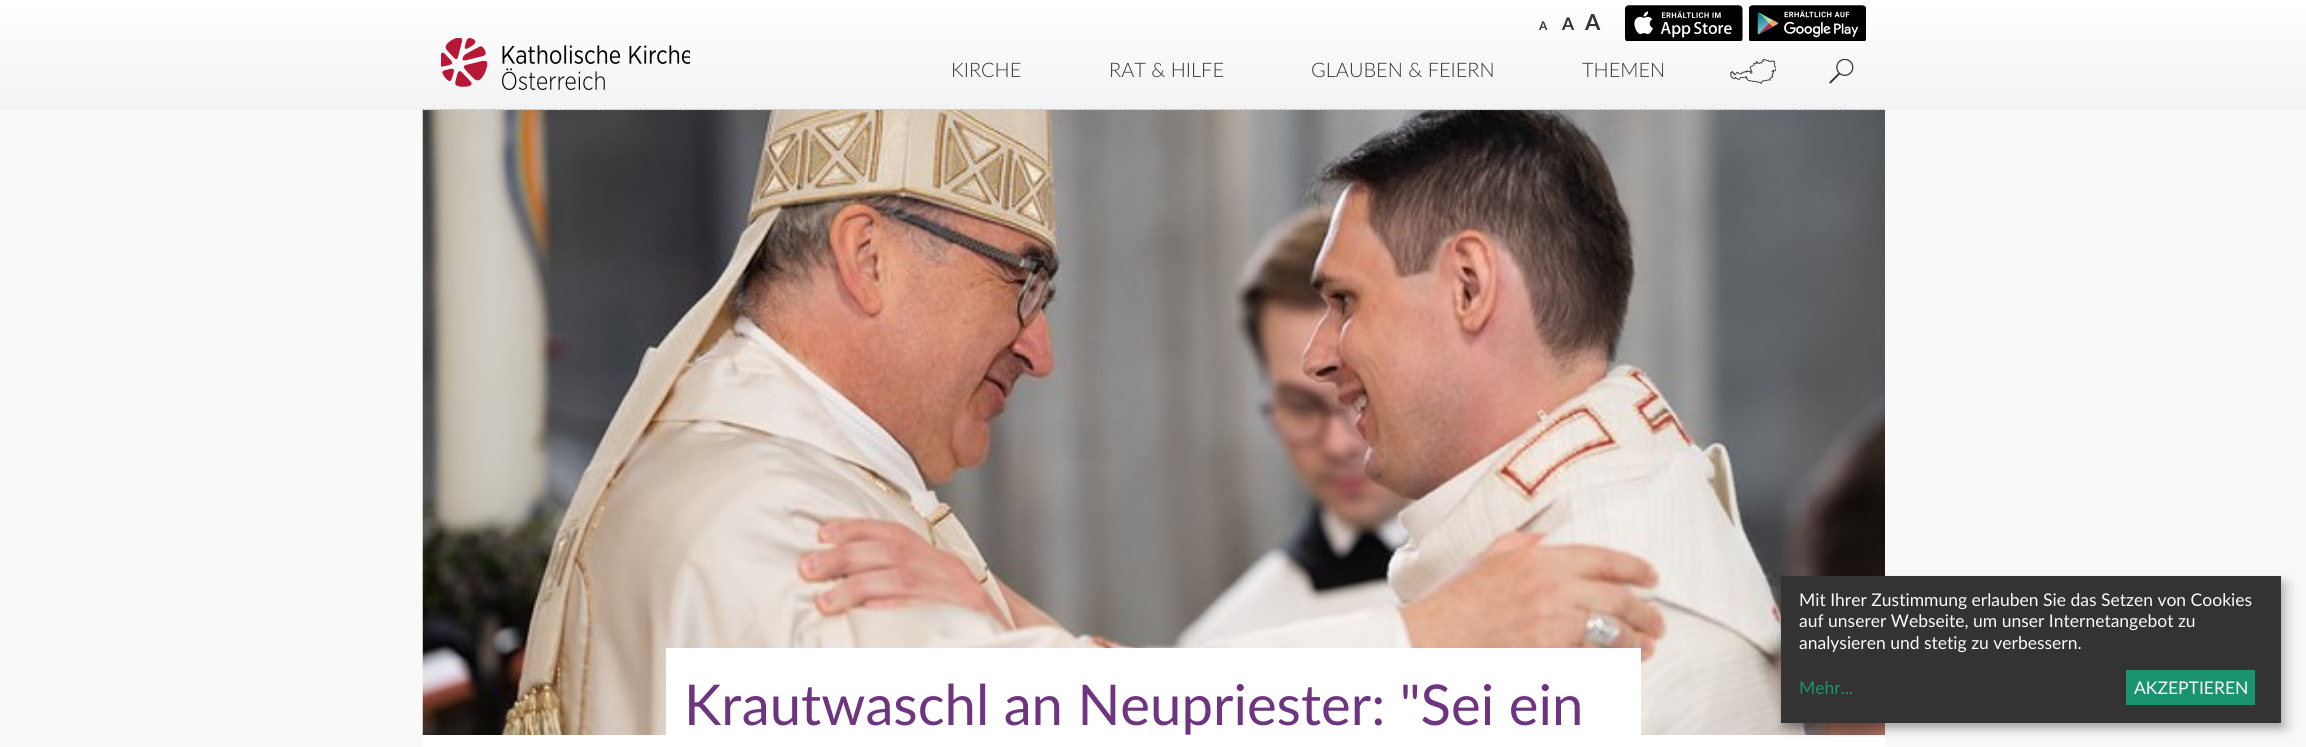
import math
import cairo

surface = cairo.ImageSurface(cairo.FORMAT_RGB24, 2306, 747)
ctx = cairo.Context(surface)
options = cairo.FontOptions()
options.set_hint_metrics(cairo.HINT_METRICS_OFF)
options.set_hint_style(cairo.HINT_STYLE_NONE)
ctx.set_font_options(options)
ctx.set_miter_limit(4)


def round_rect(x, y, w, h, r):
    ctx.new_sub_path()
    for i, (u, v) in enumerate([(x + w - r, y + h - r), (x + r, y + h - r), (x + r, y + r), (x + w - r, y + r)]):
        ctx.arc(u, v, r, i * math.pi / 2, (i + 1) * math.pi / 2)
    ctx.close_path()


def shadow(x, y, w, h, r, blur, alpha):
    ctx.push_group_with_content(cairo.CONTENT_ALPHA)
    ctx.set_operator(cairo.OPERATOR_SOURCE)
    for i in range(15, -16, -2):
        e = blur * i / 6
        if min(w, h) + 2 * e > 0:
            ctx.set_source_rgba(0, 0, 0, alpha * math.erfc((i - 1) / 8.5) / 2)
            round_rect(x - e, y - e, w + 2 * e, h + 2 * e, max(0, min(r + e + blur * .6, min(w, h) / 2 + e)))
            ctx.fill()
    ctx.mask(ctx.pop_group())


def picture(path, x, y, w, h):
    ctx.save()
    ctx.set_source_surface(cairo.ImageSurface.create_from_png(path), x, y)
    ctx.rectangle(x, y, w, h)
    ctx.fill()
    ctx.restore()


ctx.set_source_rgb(0.973, 0.973, 0.965)
ctx.paint()
gradient = cairo.LinearGradient(1153, 0, 1153, 110)
gradient.add_color_stop_rgba(0, 1, 1, 1, 1)
gradient.add_color_stop_rgba(1, 0.953, 0.953, 0.953, 1)
ctx.set_source(gradient)
ctx.rectangle(0, 0, 2306, 110)
ctx.fill()
ctx.select_font_face("Lato", cairo.FONT_SLANT_NORMAL, cairo.FONT_WEIGHT_BOLD)
ctx.set_font_size(12)
ctx.set_source_rgb(0.204, 0.204, 0.204)
ctx.move_to(1539, 30)
ctx.show_text("A")
ctx.set_font_size(17.5)
ctx.move_to(1562, 30)
ctx.show_text("A")
ctx.set_font_size(22)
ctx.move_to(1585, 30)
ctx.show_text("A")
picture("img1.png", 1625, 5, 118, 36)
picture("img2.png", 1749, 5, 117, 36)
picture("img6.png", 422, 110, 1463, 625)
ctx.new_path()
ctx.move_to(422.5, 109.5)
ctx.line_to(1885, 109.5)
ctx.set_source_rgb(0.686, 0.678, 0.702)
ctx.set_line_width(1.2)
ctx.set_dash([1.25, 1.25])
ctx.stroke()
picture("img3.png", 441, 38, 249, 52)
ctx.select_font_face("Lato Light")
ctx.set_font_size(20)
ctx.set_source_rgb(0.204, 0.204, 0.204)
ctx.move_to(951, 77)
ctx.show_text("KIRCHE")
ctx.move_to(1109, 77)
ctx.show_text("RAT & HILFE")
ctx.move_to(1311, 77)
ctx.show_text("GLAUBEN & FEIERN")
ctx.move_to(1582, 77)
ctx.show_text("THEMEN")
picture("img4.png", 1730, 59, 46, 25)
picture("img5.png", 1829, 59, 25, 25)
ctx.set_source_rgb(1, 1, 1)
ctx.rectangle(423, 735, 1462, 12)
ctx.fill()
ctx.rectangle(666, 648, 975, 87)
ctx.fill()
ctx.select_font_face("Lato")
ctx.set_font_size(56.25)
ctx.set_source_rgb(0.431, 0.204, 0.502)
ctx.move_to(684, 725)
ctx.show_text("Krautwaschl an Neupriester: \"Sei ein")
ctx.set_source_rgb(0, 0, 0)
shadow(1788, 583, 500, 146, 0, 6, 0.19)
shadow(1781, 581, 500, 147, 0, 4, 0.2)
ctx.set_source_rgb(0.2, 0.2, 0.2)
ctx.rectangle(1781, 576, 500, 147)
ctx.fill()
ctx.set_font_size(17.5)
ctx.set_source_rgb(0.98, 0.98, 0.98)
ctx.move_to(1799, 606)
ctx.show_text("Mit Ihrer Zustimmung erlauben Sie das Setzen von Cookies")
ctx.move_to(1799, 627)
ctx.show_text("auf unserer Webseite, um unser Internetangebot zu")
ctx.move_to(1799, 649)
ctx.show_text("analysieren und stetig zu verbessern.")
ctx.set_source_rgb(0.102, 0.576, 0.435)
ctx.move_to(1799, 694)
ctx.show_text("Mehr...")
ctx.rectangle(2126, 670, 129, 35)
ctx.fill()
ctx.set_source_rgb(0.98, 0.98, 0.98)
ctx.move_to(2134, 694)
ctx.show_text("AKZEPTIEREN")
surface.write_to_png("page.png")
